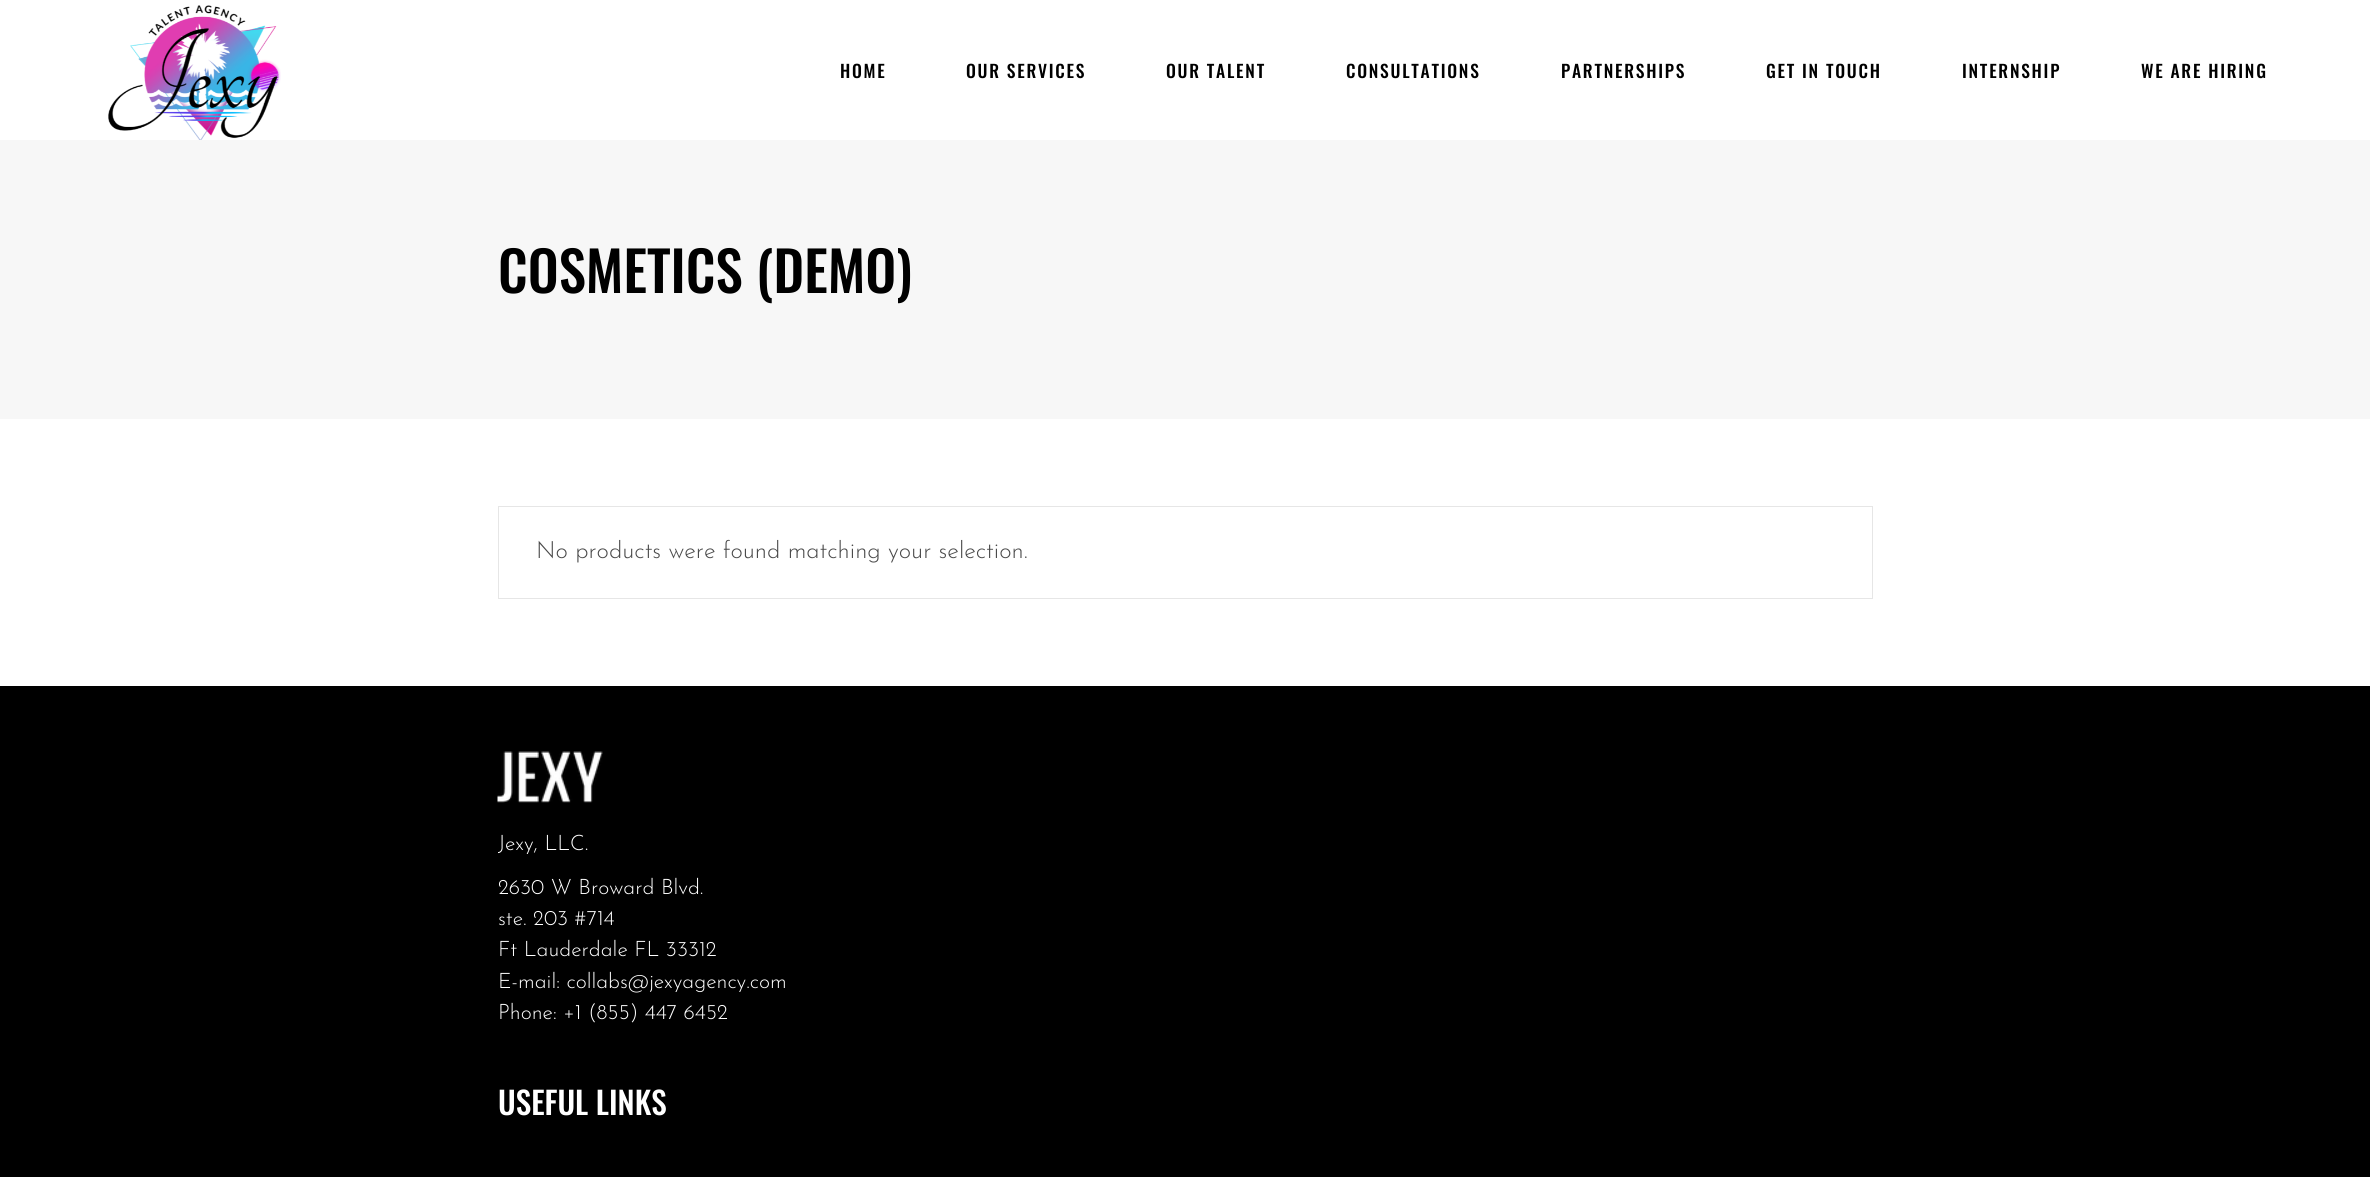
import math
import cairo

surface = cairo.ImageSurface(cairo.FORMAT_RGB24, 2370, 1177)
ctx = cairo.Context(surface)
options = cairo.FontOptions()
options.set_hint_metrics(cairo.HINT_METRICS_OFF)
options.set_hint_style(cairo.HINT_STYLE_NONE)
ctx.set_font_options(options)
ctx.set_miter_limit(4)


def spaced_text(x, y, s, letter, word):
    ctx.move_to(x, y)
    for ch in s:
        ctx.show_text(ch)
        ctx.rel_move_to(letter + word * (ch == ' '), 0)


def picture(path, x, y, w, h):
    ctx.save()
    ctx.set_source_surface(cairo.ImageSurface.create_from_png(path), x, y)
    ctx.rectangle(x, y, w, h)
    ctx.fill()
    ctx.restore()


ctx.set_source_rgb(1, 1, 1)
ctx.paint()
picture("img1.png", 108, 5, 173, 135)
ctx.select_font_face("Oswald Medium")
ctx.set_font_size(17.5)
ctx.set_source_rgb(0, 0, 0)
spaced_text(840, 78, "HOME", 1.75, 0)
spaced_text(966, 78, "OUR SERVICES", 1.75, 0)
spaced_text(1166, 78, "OUR TALENT", 1.75, 0)
spaced_text(1346, 78, "CONSULTATIONS", 1.75, 0)
spaced_text(1561, 78, "PARTNERSHIPS", 1.75, 0)
spaced_text(1766, 78, "GET IN TOUCH", 1.75, 0)
spaced_text(1962, 78, "INTERNSHIP", 1.75, 0)
spaced_text(2141, 78, "WE ARE HIRING", 1.75, 0)
ctx.set_source_rgb(0.965, 0.965, 0.965)
ctx.rectangle(0, 140, 2370, 279)
ctx.fill()
ctx.set_font_size(55)
ctx.set_source_rgb(0, 0, 0)
ctx.move_to(498, 293)
ctx.show_text("COSMETICS (DEMO)")
ctx.rectangle(498.5, 506.5, 1374, 92)
ctx.set_source_rgb(0.902, 0.902, 0.902)
ctx.set_line_width(1)
ctx.stroke()
ctx.select_font_face("Josefin Sans Light")
ctx.set_font_size(23.75)
ctx.set_source_rgb(0.286, 0.286, 0.286)
ctx.move_to(536, 558)
ctx.show_text("No products were found matching your selection.")
ctx.set_source_rgb(0, 0, 0)
ctx.rectangle(0, 686, 2370, 491)
ctx.fill()
picture("img2.png", 497, 751, 106, 52)
ctx.set_font_size(21.25)
ctx.set_source_rgb(1, 1, 1)
ctx.move_to(498, 850)
ctx.show_text("Jexy, LLC.")
ctx.move_to(498, 894)
ctx.show_text("2630 W Broward Blvd.")
ctx.move_to(498, 925)
ctx.show_text("ste. 203 #714")
ctx.move_to(498, 956)
ctx.show_text("Ft Lauderdale FL 33312")
ctx.move_to(498, 988)
ctx.show_text("E-mail: collabs@jexyagency.com")
ctx.move_to(498, 1019)
ctx.show_text("Phone: +1 (855) 447 6452")
ctx.select_font_face("Oswald Medium")
ctx.set_font_size(31.25)
ctx.move_to(498, 1115)
ctx.show_text("USEFUL LINKS")
surface.write_to_png("page.png")
